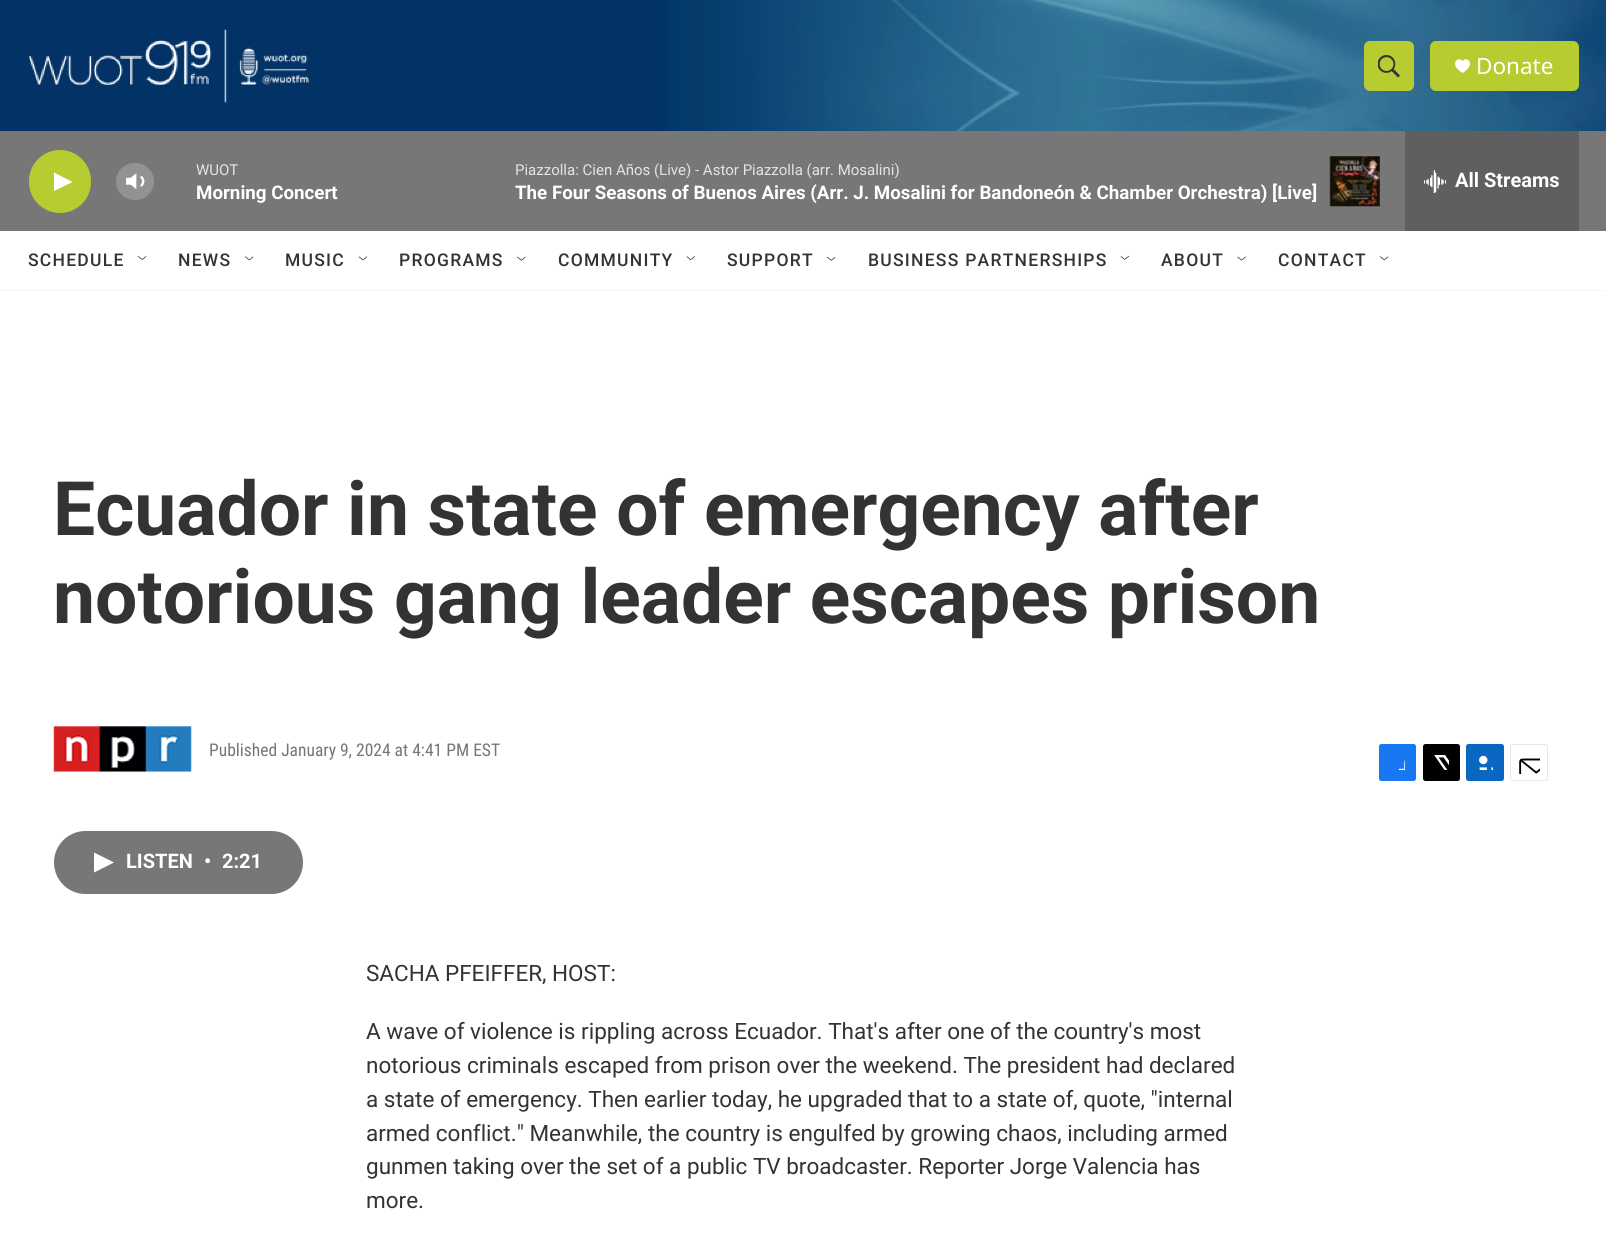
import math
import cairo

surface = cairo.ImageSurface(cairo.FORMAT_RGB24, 1606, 1239)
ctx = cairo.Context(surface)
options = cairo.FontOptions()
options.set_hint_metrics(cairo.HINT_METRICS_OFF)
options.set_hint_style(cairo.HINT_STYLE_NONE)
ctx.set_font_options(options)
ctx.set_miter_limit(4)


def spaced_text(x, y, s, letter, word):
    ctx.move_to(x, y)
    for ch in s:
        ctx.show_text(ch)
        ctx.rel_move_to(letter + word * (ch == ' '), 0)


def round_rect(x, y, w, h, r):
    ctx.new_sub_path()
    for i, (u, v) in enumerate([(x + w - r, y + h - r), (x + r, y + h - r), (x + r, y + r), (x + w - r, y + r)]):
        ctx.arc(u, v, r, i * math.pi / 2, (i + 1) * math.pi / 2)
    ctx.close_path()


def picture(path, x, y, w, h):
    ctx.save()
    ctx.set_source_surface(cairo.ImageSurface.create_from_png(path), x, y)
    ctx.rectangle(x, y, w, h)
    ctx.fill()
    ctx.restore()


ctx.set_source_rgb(1, 1, 1)
ctx.paint()
ctx.set_source_rgb(0.961, 0.961, 0.961)
ctx.rectangle(0, 290, 1606, 1)
ctx.fill()
picture("img1.png", 0, 0, 1606, 131)
picture("img2.png", 28, 29, 281, 74)
ctx.set_source_rgb(0.718, 0.8, 0.192)
round_rect(1364, 41, 50, 50, 6)
ctx.fill()
picture("img3.png", 1378, 55, 22, 23)
round_rect(1430, 41, 149, 50, 6)
ctx.fill()
ctx.set_source_rgb(1, 1, 1)
ctx.new_path()
ctx.move_to(1462.5, 61.5)
ctx.curve_to(1460, 55, 1447, 63.5, 1462.5, 73)
ctx.curve_to(1478, 63.5, 1465, 55, 1462.5, 61.5)
ctx.close_path()
ctx.fill()
ctx.select_font_face("Noto Sans")
ctx.set_font_size(22.5)
ctx.move_to(1476, 74)
ctx.show_text("Donate")
ctx.set_source_rgb(0.467, 0.467, 0.467)
ctx.rectangle(0, 131, 1606, 100)
ctx.fill()
ctx.set_source_rgb(0.718, 0.8, 0.192)
round_rect(29, 150, 62, 63, 31)
ctx.fill()
ctx.set_source_rgb(1, 1, 1)
ctx.new_path()
ctx.move_to(54, 172.5)
ctx.line_to(72.5, 182)
ctx.line_to(54, 191)
ctx.close_path()
ctx.fill()
picture("img4.png", 126, 173, 19, 17)
ctx.set_source_rgba(1, 1, 1, 0.2)
round_rect(116, 163, 38, 37, 18.5)
ctx.fill()
ctx.select_font_face("Roboto")
ctx.set_font_size(15)
ctx.set_source_rgb(0.894, 0.894, 0.894)
ctx.move_to(196, 175)
ctx.show_text("WUOT")
ctx.select_font_face("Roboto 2", cairo.FONT_SLANT_NORMAL, cairo.FONT_WEIGHT_BOLD)
ctx.set_font_size(18.75)
ctx.set_source_rgb(1, 1, 1)
ctx.move_to(196, 199)
ctx.show_text("Morning Concert")
ctx.select_font_face("Roboto")
ctx.set_font_size(15)
ctx.set_source_rgb(0.894, 0.894, 0.894)
ctx.move_to(515, 175)
ctx.show_text("Piazzolla: Cien Años (Live) - Astor Piazzolla (arr. Mosalini)")
ctx.select_font_face("Roboto 2", cairo.FONT_SLANT_NORMAL, cairo.FONT_WEIGHT_BOLD)
ctx.set_font_size(18.75)
ctx.set_source_rgb(1, 1, 1)
ctx.move_to(515, 199)
ctx.show_text("The Four Seasons of Buenos Aires (Arr. J. Mosalini for Bandoneón & Chamber Orchestra) [Live]")
picture("img5.png", 1329, 156, 51, 51)
ctx.set_source_rgb(0.373, 0.373, 0.373)
ctx.rectangle(1405, 131, 174, 100)
ctx.fill()
picture("img6.png", 1424, 170, 22, 23)
ctx.set_font_size(20)
ctx.set_source_rgb(1, 1, 1)
ctx.move_to(1455, 187)
ctx.show_text("All Streams")
ctx.select_font_face("Roboto Medium")
ctx.set_font_size(17.5)
ctx.set_source_rgb(0.2, 0.2, 0.2)
spaced_text(28, 266, "SCHEDULE", 1.25, 0)
picture("img7.png", 138, 256, 9, 4)
spaced_text(178, 266, "NEWS", 1.25, 0)
picture("img8.png", 245, 256, 9, 5)
spaced_text(285, 266, "MUSIC", 1.25, 0)
picture("img9.png", 358, 256, 9, 5)
spaced_text(399, 266, "PROGRAMS", 1.25, 0)
picture("img10.png", 517, 256, 9, 5)
spaced_text(558, 266, "COMMUNITY", 1.25, 0)
picture("img11.png", 686, 256, 9, 5)
spaced_text(727, 266, "SUPPORT", 1.25, 0)
picture("img12.png", 827, 256, 9, 5)
spaced_text(868, 266, "BUSINESS PARTNERSHIPS", 1.25, 0)
picture("img13.png", 1120, 255, 9, 5)
spaced_text(1161, 266, "ABOUT", 1.25, 0)
picture("img14.png", 1237, 256, 9, 5)
spaced_text(1278, 266, "CONTACT", 1.25, 0)
picture("img15.png", 1380, 256, 9, 5)
ctx.select_font_face("Roboto", cairo.FONT_SLANT_NORMAL, cairo.FONT_WEIGHT_BOLD)
ctx.set_font_size(75)
ctx.move_to(53, 535)
ctx.show_text("Ecuador in state of emergency after")
ctx.move_to(53, 623)
ctx.show_text("notorious gang leader escapes prison")
picture("img16.png", 53, 726, 139, 47)
ctx.select_font_face("Roboto Condensed")
ctx.set_font_size(17.5)
ctx.set_source_rgb(0.463, 0.463, 0.463)
ctx.move_to(209, 756)
ctx.show_text("Published January 9, 2024 at 4:41 PM EST")
ctx.set_source_rgb(0.09, 0.471, 0.949)
round_rect(1379, 744, 37, 37, 2.5)
ctx.fill()
picture("img17.png", 1398, 760, 7, 10)
ctx.set_source_rgb(0, 0, 0)
round_rect(1423, 744, 37, 37, 2.5)
ctx.fill()
picture("img18.png", 1434, 755, 15, 15)
ctx.set_source_rgb(0.039, 0.4, 0.757)
round_rect(1466, 744, 38, 37, 2.5)
ctx.fill()
picture("img19.png", 1479, 755, 14, 15)
round_rect(1510.5, 744.5, 37, 36, 2)
ctx.set_source_rgb(0.902, 0.902, 0.902)
ctx.set_line_width(1)
ctx.stroke()
picture("img20.png", 1519, 758, 21, 16)
ctx.set_source_rgb(0.467, 0.467, 0.467)
round_rect(54, 831, 249, 63, 31.5)
ctx.fill()
ctx.set_source_rgb(1, 1, 1)
ctx.new_path()
ctx.move_to(94, 852.5)
ctx.line_to(114, 862.5)
ctx.line_to(94, 872.5)
ctx.close_path()
ctx.fill()
ctx.select_font_face("Roboto 2", cairo.FONT_SLANT_NORMAL, cairo.FONT_WEIGHT_BOLD)
ctx.set_font_size(20)
ctx.move_to(126, 868)
ctx.show_text("LISTEN")
ctx.move_to(204, 868)
ctx.show_text("•")
ctx.move_to(222, 868)
ctx.show_text("2:21")
ctx.select_font_face("Roboto")
ctx.set_font_size(22.5)
ctx.set_source_rgb(0.2, 0.2, 0.2)
ctx.move_to(366, 981)
ctx.show_text("SACHA PFEIFFER, HOST:")
ctx.move_to(366, 1039)
ctx.show_text("A wave of violence is rippling across Ecuador. That's after one of the country's most")
ctx.move_to(366, 1073)
ctx.show_text("notorious criminals escaped from prison over the weekend. The president had declared")
ctx.move_to(366, 1107)
ctx.show_text("a state of emergency. Then earlier today, he upgraded that to a state of, quote, \"internal")
ctx.move_to(366, 1141)
ctx.show_text("armed conflict.\" Meanwhile, the country is engulfed by growing chaos, including armed")
ctx.move_to(366, 1174)
ctx.show_text("gunmen taking over the set of a public TV broadcaster. Reporter Jorge Valencia has")
ctx.move_to(366, 1208)
ctx.show_text("more.")
surface.write_to_png("page.png")
